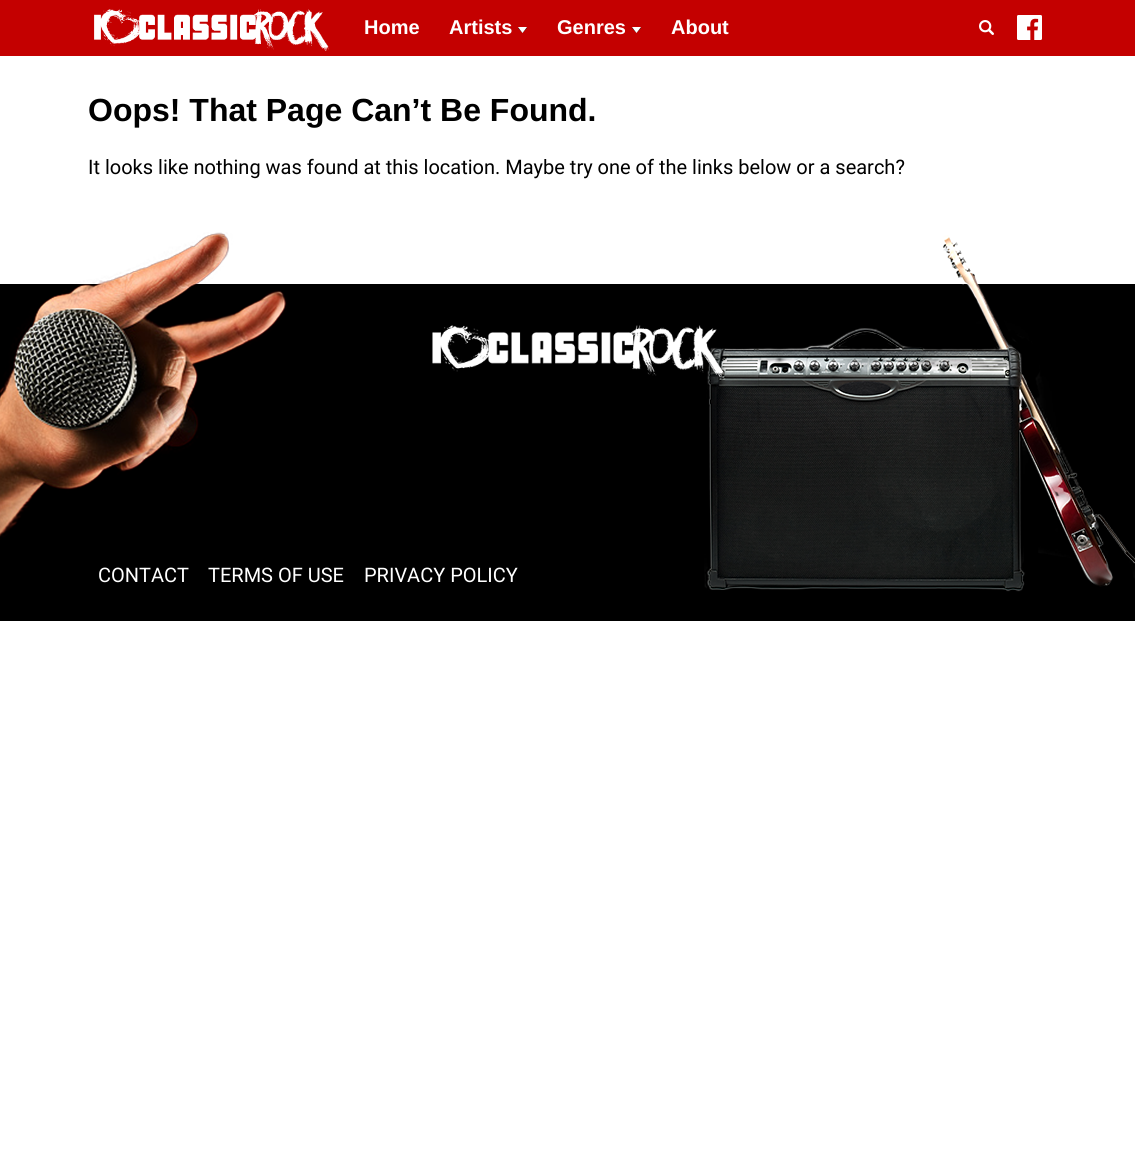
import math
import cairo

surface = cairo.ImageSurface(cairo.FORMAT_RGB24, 1135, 1152)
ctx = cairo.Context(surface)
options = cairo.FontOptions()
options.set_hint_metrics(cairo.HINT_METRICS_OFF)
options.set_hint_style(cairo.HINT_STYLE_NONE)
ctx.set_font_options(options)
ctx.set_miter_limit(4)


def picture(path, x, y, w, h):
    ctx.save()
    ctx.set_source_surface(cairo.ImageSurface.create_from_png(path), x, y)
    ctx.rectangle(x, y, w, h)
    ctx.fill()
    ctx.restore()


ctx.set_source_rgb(1, 1, 1)
ctx.paint()
ctx.set_source_rgb(0.769, 0, 0)
ctx.rectangle(0, 0, 1135, 56)
ctx.fill()
picture("img1.png", 94, 9, 235, 42)
ctx.select_font_face("Liberation Sans", cairo.FONT_SLANT_NORMAL, cairo.FONT_WEIGHT_BOLD)
ctx.set_font_size(20)
ctx.set_source_rgb(1, 1, 1)
ctx.move_to(364, 34)
ctx.show_text("Home")
ctx.move_to(449, 34)
ctx.show_text("Artists")
picture("img2.png", 518, 27, 9, 6)
ctx.move_to(557, 34)
ctx.show_text("Genres")
picture("img2.png", 632, 27, 9, 6)
ctx.move_to(671, 34)
ctx.show_text("About")
picture("img3.png", 979, 20, 15, 15)
picture("img4.png", 1017, 15, 25, 25)
ctx.set_font_size(32)
ctx.set_source_rgb(0, 0, 0)
ctx.move_to(88, 121)
ctx.show_text("Oops! That Page Can’t Be Found.")
ctx.select_font_face("Roboto")
ctx.set_font_size(20)
ctx.move_to(88, 174)
ctx.show_text("It looks like nothing was found at this location. Maybe try one of the links below or a search?")
ctx.rectangle(0, 284, 1135, 337)
ctx.fill()
picture("img5.png", 0, 232, 287, 308)
picture("img6.png", 704, 235, 431, 357)
picture("img7.png", 432, 325, 295, 54)
ctx.set_source_rgb(1, 1, 1)
ctx.move_to(98, 582)
ctx.show_text("CONTACT")
ctx.move_to(208, 582)
ctx.show_text("TERMS OF USE")
ctx.move_to(364, 582)
ctx.show_text("PRIVACY POLICY")
surface.write_to_png("page.png")
